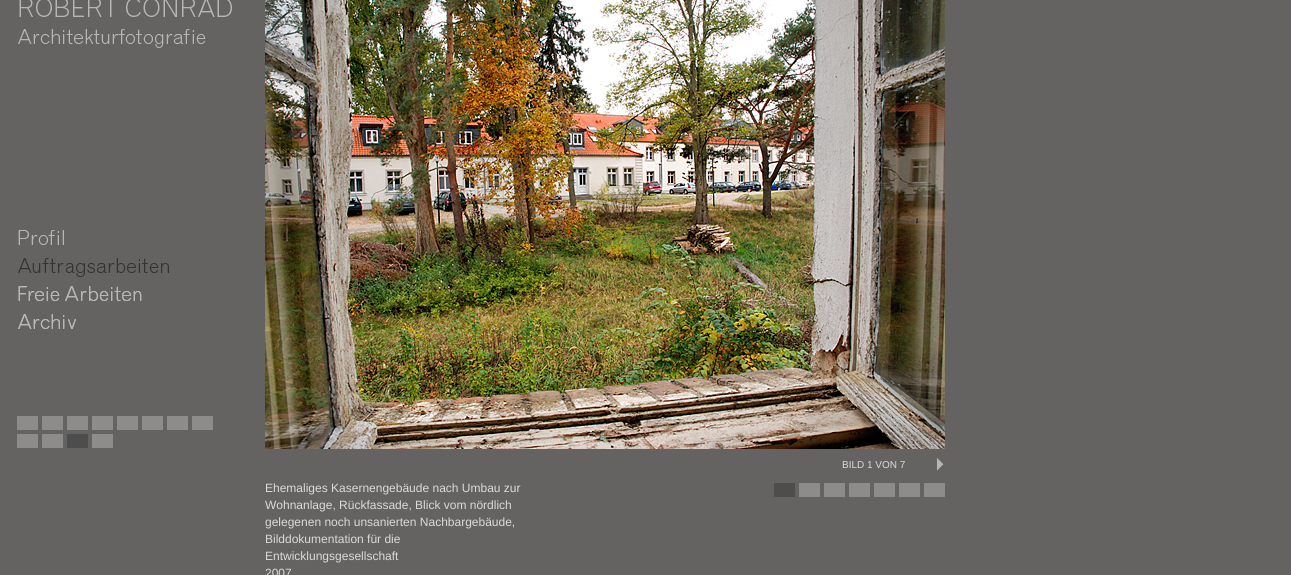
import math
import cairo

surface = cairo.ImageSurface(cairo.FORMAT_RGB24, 1291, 575)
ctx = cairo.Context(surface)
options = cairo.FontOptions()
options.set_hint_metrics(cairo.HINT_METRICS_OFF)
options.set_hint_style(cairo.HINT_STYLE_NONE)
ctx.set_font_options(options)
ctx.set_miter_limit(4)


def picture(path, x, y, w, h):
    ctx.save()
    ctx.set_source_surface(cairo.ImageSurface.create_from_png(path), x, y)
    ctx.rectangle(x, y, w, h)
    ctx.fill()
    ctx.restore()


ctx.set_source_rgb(0.396, 0.388, 0.384)
ctx.paint()
picture("img1.png", 18, 0, 214, 48)
picture("img2.png", 18, 230, 46, 15)
picture("img3.png", 18, 258, 151, 19)
picture("img4.png", 18, 286, 124, 15)
picture("img5.png", 18, 314, 58, 15)
ctx.set_source_rgb(0.553, 0.549, 0.545)
ctx.rectangle(17, 416, 21, 14)
ctx.fill()
ctx.rectangle(42, 416, 21, 14)
ctx.fill()
ctx.rectangle(67, 416, 21, 14)
ctx.fill()
ctx.rectangle(92, 416, 21, 14)
ctx.fill()
ctx.rectangle(117, 416, 21, 14)
ctx.fill()
ctx.rectangle(142, 416, 21, 14)
ctx.fill()
ctx.rectangle(167, 416, 21, 14)
ctx.fill()
ctx.rectangle(192, 416, 21, 14)
ctx.fill()
ctx.rectangle(17, 434, 21, 14)
ctx.fill()
ctx.rectangle(42, 434, 21, 14)
ctx.fill()
ctx.set_source_rgb(0.302, 0.302, 0.302)
ctx.rectangle(67, 434, 21, 14)
ctx.fill()
ctx.set_source_rgb(0.553, 0.549, 0.545)
ctx.rectangle(92, 434, 21, 14)
ctx.fill()
picture("img6.png", 265, 0, 680, 449)
ctx.select_font_face("Liberation Sans")
ctx.set_font_size(10)
ctx.set_source_rgb(0.851, 0.855, 0.859)
ctx.move_to(842, 468)
ctx.show_text("BILD 1 VON 7")
picture("img7.png", 937, 458, 7, 13)
ctx.set_font_size(12)
ctx.move_to(265, 492)
ctx.show_text("Ehemaliges Kasernengebäude nach Umbau zur")
ctx.move_to(265, 509)
ctx.show_text("Wohnanlage, Rückfassade, Blick vom nördlich")
ctx.move_to(265, 526)
ctx.show_text("gelegenen noch unsanierten Nachbargebäude,")
ctx.move_to(265, 543)
ctx.show_text("Bilddokumentation für die")
ctx.move_to(265, 560)
ctx.show_text("Entwicklungsgesellschaft")
ctx.move_to(265, 577)
ctx.show_text("2007")
ctx.set_source_rgb(0.302, 0.302, 0.302)
ctx.rectangle(774, 483, 21, 14)
ctx.fill()
ctx.set_source_rgb(0.553, 0.549, 0.545)
ctx.rectangle(799, 483, 21, 14)
ctx.fill()
ctx.rectangle(824, 483, 21, 14)
ctx.fill()
ctx.rectangle(849, 483, 21, 14)
ctx.fill()
ctx.rectangle(874, 483, 21, 14)
ctx.fill()
ctx.rectangle(899, 483, 21, 14)
ctx.fill()
ctx.rectangle(924, 483, 21, 14)
ctx.fill()
surface.write_to_png("page.png")
